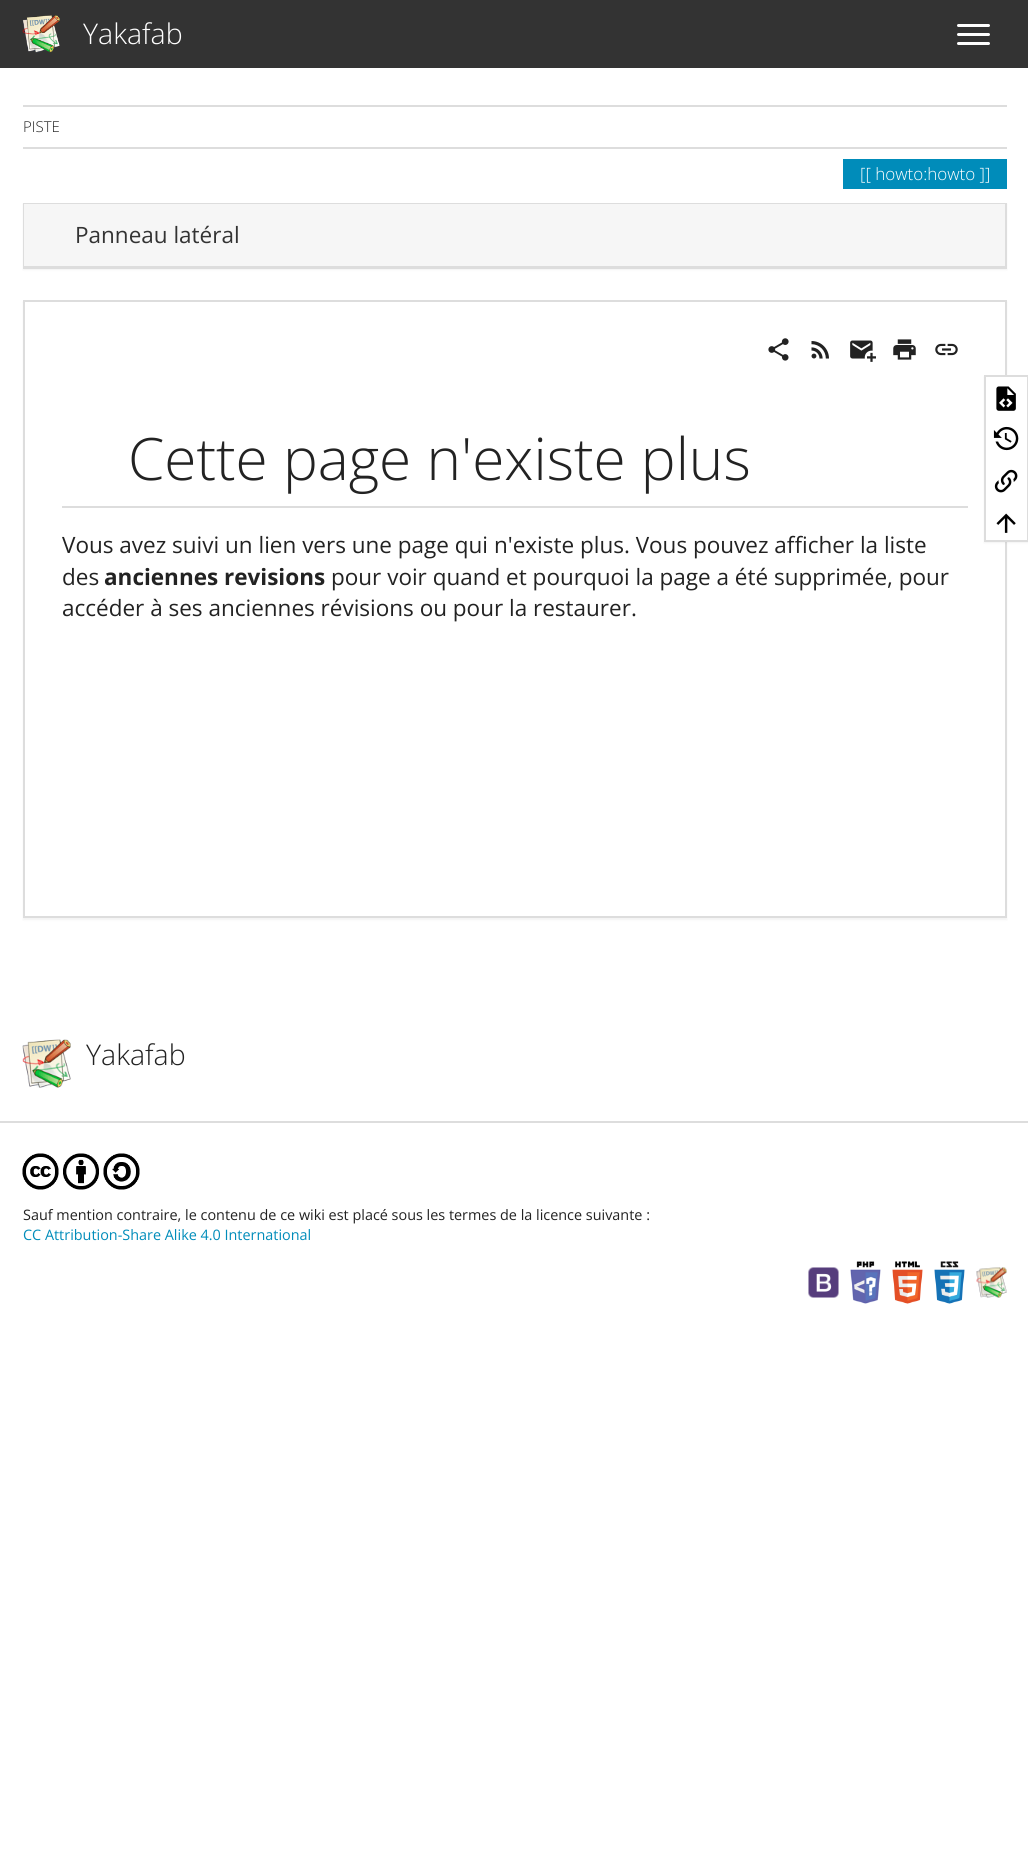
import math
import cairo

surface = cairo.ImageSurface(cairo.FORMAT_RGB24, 1028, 1864)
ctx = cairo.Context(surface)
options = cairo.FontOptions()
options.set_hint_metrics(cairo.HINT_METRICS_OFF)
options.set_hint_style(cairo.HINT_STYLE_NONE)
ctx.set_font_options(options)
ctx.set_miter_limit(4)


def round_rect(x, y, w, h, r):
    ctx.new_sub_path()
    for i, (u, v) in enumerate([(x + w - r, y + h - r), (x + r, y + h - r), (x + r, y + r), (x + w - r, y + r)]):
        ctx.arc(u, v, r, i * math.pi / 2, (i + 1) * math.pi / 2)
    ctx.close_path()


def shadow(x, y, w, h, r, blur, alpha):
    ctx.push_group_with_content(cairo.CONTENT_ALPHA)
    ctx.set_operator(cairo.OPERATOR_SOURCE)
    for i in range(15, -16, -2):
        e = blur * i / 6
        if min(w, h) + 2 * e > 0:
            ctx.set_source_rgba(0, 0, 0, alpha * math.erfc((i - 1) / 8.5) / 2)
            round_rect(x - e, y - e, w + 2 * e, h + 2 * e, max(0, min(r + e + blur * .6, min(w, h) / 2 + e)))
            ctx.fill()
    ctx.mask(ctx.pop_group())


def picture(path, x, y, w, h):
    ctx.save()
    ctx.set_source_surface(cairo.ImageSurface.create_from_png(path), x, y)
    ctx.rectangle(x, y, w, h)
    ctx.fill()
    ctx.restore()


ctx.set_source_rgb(1, 1, 1)
ctx.paint()
ctx.set_source_rgb(0.2, 0.2, 0.2)
ctx.rectangle(0, 0, 1028, 68)
ctx.fill()
picture("img1.png", 22, 15, 38, 38)
ctx.select_font_face("Open Sans Light")
ctx.set_font_size(28.5)
ctx.set_source_rgb(1, 1, 1)
ctx.move_to(83, 44)
ctx.show_text("Yakafab")
round_rect(957, 24, 33, 3, 1.5)
ctx.fill()
round_rect(957, 33, 33, 3, 1.5)
ctx.fill()
round_rect(957, 42, 33, 3, 1.5)
ctx.fill()
ctx.set_source_rgb(0.867, 0.867, 0.867)
ctx.rectangle(23, 105, 984, 2)
ctx.fill()
ctx.set_font_size(15)
ctx.set_source_rgb(0.133, 0.133, 0.133)
ctx.move_to(23, 132)
ctx.show_text("PISTE")
ctx.set_source_rgb(0.867, 0.867, 0.867)
ctx.rectangle(23, 147, 984, 2)
ctx.fill()
ctx.set_source_rgb(0, 0.549, 0.729)
ctx.rectangle(843, 159, 164, 30)
ctx.fill()
ctx.set_font_size(17)
ctx.set_source_rgb(1, 1, 1)
ctx.move_to(860, 180)
ctx.show_text("[[ howto:howto ]]")
ctx.set_source_rgb(0, 0, 0)
shadow(23, 204, 984, 66, 0, 1, 0.05)
ctx.rectangle(24, 204, 982, 64)
ctx.set_source_rgb(0.867, 0.867, 0.867)
ctx.stroke()
ctx.set_source_rgb(0.961, 0.961, 0.961)
ctx.rectangle(24, 204, 981, 62)
ctx.fill()
ctx.set_source_rgb(0.867, 0.867, 0.867)
ctx.rectangle(24, 266, 981, 1)
ctx.fill()
ctx.select_font_face("Open Sans")
ctx.set_font_size(22.5)
ctx.set_source_rgb(0.2, 0.2, 0.2)
ctx.move_to(75, 243)
ctx.show_text("Panneau latéral")
ctx.set_source_rgb(0, 0, 0)
shadow(23, 302, 984, 618, 0, 1, 0.05)
ctx.set_source_rgb(1, 1, 1)
ctx.rectangle(24, 301, 982, 616)
ctx.fill_preserve()
ctx.set_source_rgb(0.867, 0.867, 0.867)
ctx.stroke()
picture("img2.png", 768, 338, 21, 23)
picture("img3.png", 811, 341, 18, 18)
picture("img4.png", 850, 340, 26, 22)
picture("img5.png", 893, 339, 23, 21)
picture("img6.png", 935, 343, 23, 13)
ctx.rectangle(62, 506, 906, 2)
ctx.fill()
ctx.select_font_face("Open Sans Light")
ctx.set_font_size(58.5)
ctx.set_source_rgb(0.133, 0.133, 0.133)
ctx.move_to(128, 480)
ctx.show_text("Cette page n'existe plus")
ctx.select_font_face("Open Sans")
ctx.set_font_size(22.5)
ctx.move_to(62, 553)
ctx.show_text("Vous avez suivi un lien vers une page qui n'existe plus. Vous pouvez afficher la liste")
ctx.move_to(62, 585)
ctx.show_text("des")
ctx.select_font_face("Open Sans", cairo.FONT_SLANT_NORMAL, cairo.FONT_WEIGHT_BOLD)
ctx.move_to(104, 585)
ctx.show_text("anciennes revisions")
ctx.select_font_face("Open Sans")
ctx.move_to(331, 585)
ctx.show_text("pour voir quand et pourquoi la page a été supprimée, pour")
ctx.move_to(62, 616)
ctx.show_text("accéder à ses anciennes révisions ou pour la restaurer.")
ctx.set_source_rgb(0, 0, 0)
shadow(984, 377, 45, 166, 0, 1, 0.05)
ctx.set_source_rgb(1, 1, 1)
ctx.rectangle(985, 376, 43, 165)
ctx.fill_preserve()
ctx.set_source_rgb(0.867, 0.867, 0.867)
ctx.stroke()
picture("img7.png", 996, 386, 20, 25)
picture("img8.png", 993, 426, 26, 25)
picture("img9.png", 994, 469, 24, 24)
picture("img10.png", 996, 513, 20, 20)
picture("img11.png", 22, 1039, 49, 49)
ctx.select_font_face("Open Sans Light")
ctx.set_font_size(28.5)
ctx.set_source_rgb(0.133, 0.133, 0.133)
ctx.move_to(86, 1065)
ctx.show_text("Yakafab")
ctx.set_source_rgb(0.867, 0.867, 0.867)
ctx.rectangle(0, 1121, 1028, 2)
ctx.fill()
picture("img12.png", 22, 1153, 37, 37)
picture("img13.png", 63, 1153, 36, 37)
picture("img14.png", 103, 1153, 37, 37)
ctx.select_font_face("Open Sans")
ctx.set_font_size(14.4)
ctx.set_source_rgb(0.133, 0.133, 0.133)
ctx.move_to(23, 1220)
ctx.show_text("Sauf mention contraire, le contenu de ce wiki est placé sous les termes de la licence suivante :")
ctx.set_source_rgb(0, 0.549, 0.729)
ctx.move_to(23, 1240)
ctx.show_text("CC Attribution-Share Alike 4.0 International")
picture("img15.png", 808, 1267, 31, 31)
picture("img16.png", 850, 1261, 31, 43)
picture("img17.png", 892, 1261, 31, 43)
picture("img18.png", 934, 1261, 31, 43)
picture("img19.png", 976, 1267, 31, 31)
surface.write_to_png("page.png")
